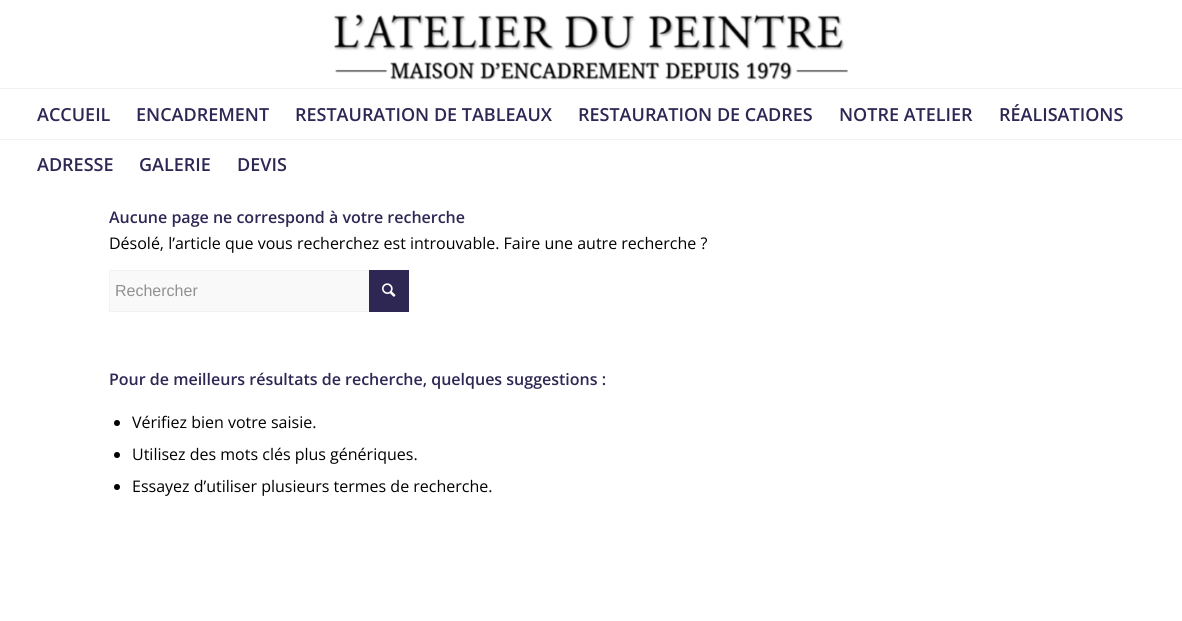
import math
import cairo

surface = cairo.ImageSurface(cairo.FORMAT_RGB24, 1182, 621)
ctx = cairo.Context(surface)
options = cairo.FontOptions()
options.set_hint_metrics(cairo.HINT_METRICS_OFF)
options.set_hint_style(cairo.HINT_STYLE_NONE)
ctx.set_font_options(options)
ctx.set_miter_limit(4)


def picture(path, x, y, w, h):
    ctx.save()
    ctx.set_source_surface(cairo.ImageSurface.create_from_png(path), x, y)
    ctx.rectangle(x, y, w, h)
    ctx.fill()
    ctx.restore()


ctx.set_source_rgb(1, 1, 1)
ctx.paint()
ctx.set_source_rgb(0.949, 0.949, 0.949)
ctx.rectangle(0, 139, 1182, 1)
ctx.fill()
picture("img1.png", 334, 14, 514, 66)
ctx.rectangle(0, 88, 1182, 1)
ctx.fill()
ctx.select_font_face("Open Sans SemiBold")
ctx.set_font_size(18)
ctx.set_source_rgb(0.18, 0.153, 0.329)
ctx.move_to(37, 121)
ctx.show_text("ACCUEIL")
ctx.move_to(136, 121)
ctx.show_text("ENCADREMENT")
ctx.move_to(295, 121)
ctx.show_text("RESTAURATION DE TABLEAUX")
ctx.move_to(578, 121)
ctx.show_text("RESTAURATION DE CADRES")
ctx.move_to(839, 121)
ctx.show_text("NOTRE ATELIER")
ctx.move_to(999, 121)
ctx.show_text("RÉALISATIONS")
ctx.move_to(37, 171)
ctx.show_text("ADRESSE")
ctx.move_to(139, 171)
ctx.show_text("GALERIE")
ctx.move_to(237, 171)
ctx.show_text("DEVIS")
ctx.set_font_size(16)
ctx.move_to(109, 223)
ctx.show_text("Aucune page ne correspond à votre recherche")
ctx.select_font_face("Open Sans")
ctx.set_source_rgb(0, 0, 0)
ctx.move_to(109, 249)
ctx.show_text("Désolé, l’article que vous recherchez est introuvable. Faire une autre recherche ?")
ctx.set_source_rgb(0.973, 0.973, 0.973)
ctx.rectangle(110, 271, 259, 40)
ctx.fill()
ctx.rectangle(109.5, 270.5, 299, 41)
ctx.set_source_rgb(0.949, 0.949, 0.949)
ctx.set_line_width(1)
ctx.stroke()
ctx.select_font_face("Liberation Sans")
ctx.set_source_rgb(0.569, 0.569, 0.569)
ctx.move_to(115, 296)
ctx.show_text("Rechercher")
ctx.set_source_rgb(0.18, 0.153, 0.329)
ctx.rectangle(369, 270, 40, 42)
ctx.fill()
picture("img2.png", 382, 283, 14, 14)
ctx.select_font_face("Open Sans SemiBold")
ctx.move_to(109, 385)
ctx.show_text("Pour de meilleurs résultats de recherche, quelques suggestions :")
ctx.set_source_rgb(0, 0, 0)
ctx.new_path()
ctx.arc(117, 423, 3, 0, 2 * math.pi)
ctx.fill()
ctx.select_font_face("Open Sans")
ctx.move_to(132, 428)
ctx.show_text("Vérifiez bien votre saisie.")
ctx.new_path()
ctx.arc(117, 455, 3, 0, 2 * math.pi)
ctx.fill()
ctx.move_to(132, 460)
ctx.show_text("Utilisez des mots clés plus génériques.")
ctx.new_path()
ctx.arc(117, 487, 3, 0, 2 * math.pi)
ctx.fill()
ctx.move_to(132, 492)
ctx.show_text("Essayez d’utiliser plusieurs termes de recherche.")
surface.write_to_png("page.png")
